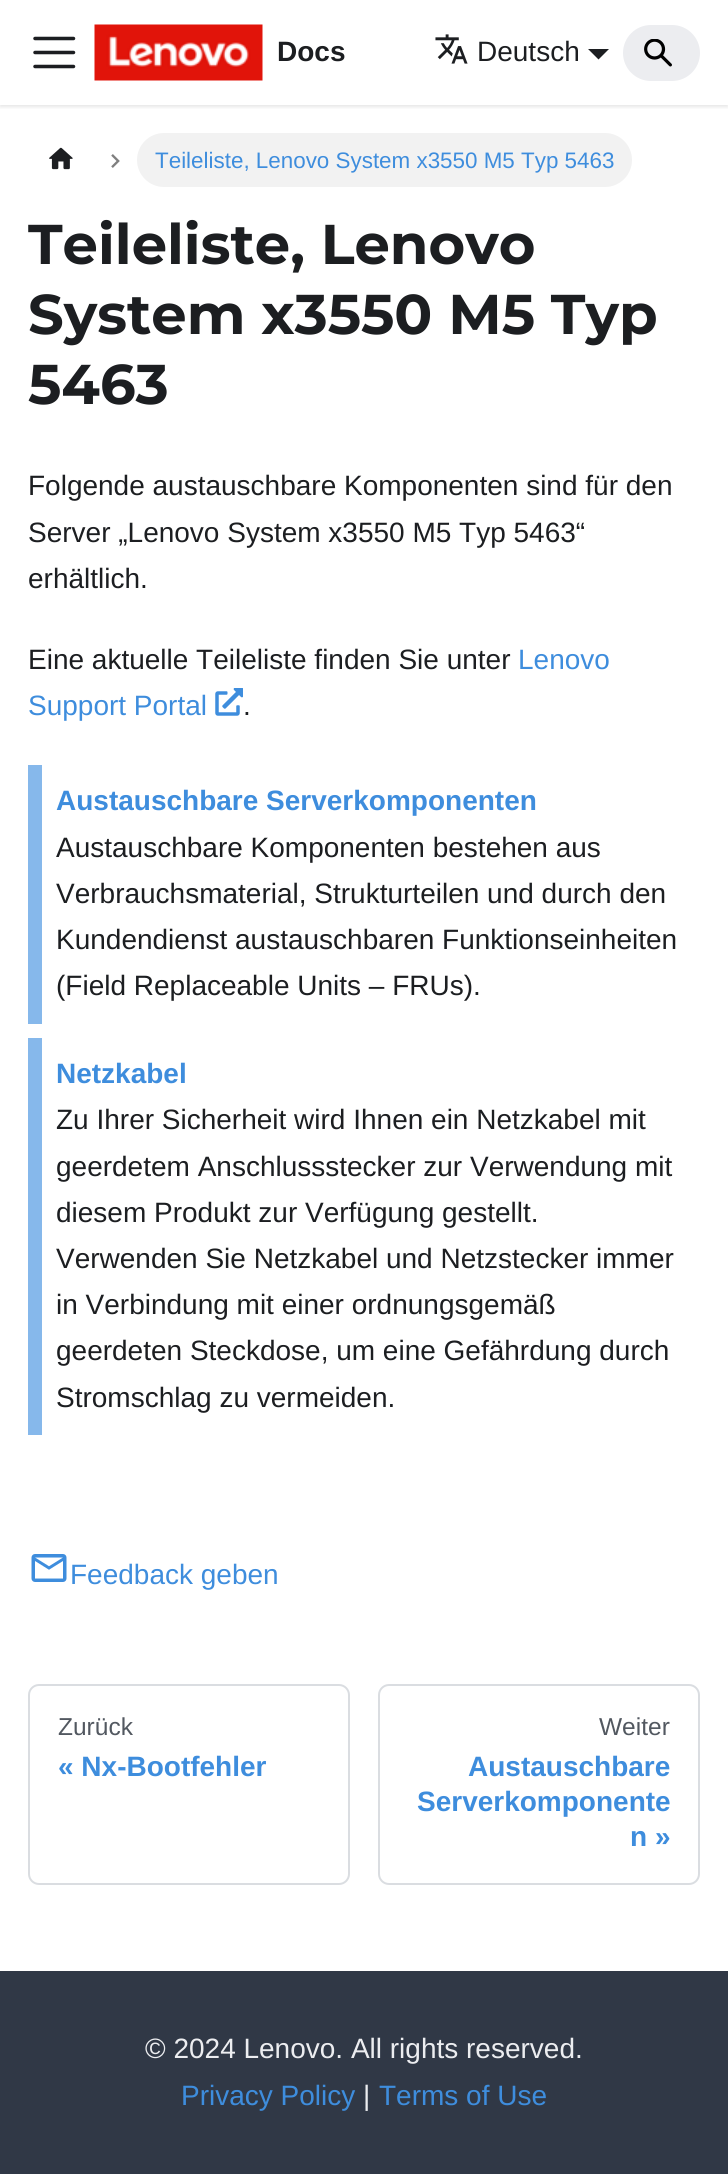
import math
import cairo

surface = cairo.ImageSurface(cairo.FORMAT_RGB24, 728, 2174)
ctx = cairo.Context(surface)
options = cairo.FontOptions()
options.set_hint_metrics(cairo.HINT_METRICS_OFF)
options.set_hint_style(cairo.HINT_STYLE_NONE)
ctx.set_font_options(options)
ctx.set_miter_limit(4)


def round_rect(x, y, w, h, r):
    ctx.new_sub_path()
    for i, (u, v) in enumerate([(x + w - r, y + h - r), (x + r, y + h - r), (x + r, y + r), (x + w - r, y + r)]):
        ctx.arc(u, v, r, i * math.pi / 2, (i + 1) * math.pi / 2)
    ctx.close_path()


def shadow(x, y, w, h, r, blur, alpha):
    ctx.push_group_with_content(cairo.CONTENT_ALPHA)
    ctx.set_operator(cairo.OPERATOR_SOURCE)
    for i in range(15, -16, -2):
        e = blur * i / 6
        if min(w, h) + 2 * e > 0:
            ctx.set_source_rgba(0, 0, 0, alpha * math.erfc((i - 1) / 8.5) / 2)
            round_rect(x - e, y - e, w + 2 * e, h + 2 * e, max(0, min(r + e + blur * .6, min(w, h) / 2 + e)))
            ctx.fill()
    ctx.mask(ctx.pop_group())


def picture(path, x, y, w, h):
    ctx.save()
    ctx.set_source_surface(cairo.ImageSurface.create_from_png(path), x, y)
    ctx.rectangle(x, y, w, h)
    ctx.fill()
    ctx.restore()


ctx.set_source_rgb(1, 1, 1)
ctx.paint()
ctx.save()
ctx.rectangle(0, 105, 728, 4)
ctx.clip()
ctx.set_source_rgb(0, 0, 0)
shadow(0, 2, 728, 105, 0, 2, 0.1)
ctx.restore()
ctx.new_path()
ctx.move_to(35, 38.5)
ctx.line_to(73.5, 38.5)
ctx.move_to(35, 52.5)
ctx.line_to(73.5, 52.5)
ctx.move_to(35, 66.5)
ctx.line_to(73.5, 66.5)
ctx.set_source_rgb(0.11, 0.118, 0.129)
ctx.set_line_width(3.5)
ctx.set_line_cap(cairo.LINE_CAP_ROUND)
ctx.stroke()
picture("img1.png", 94, 24, 169, 57)
ctx.select_font_face("Liberation Sans", cairo.FONT_SLANT_NORMAL, cairo.FONT_WEIGHT_BOLD)
ctx.set_font_size(28)
ctx.move_to(277, 61)
ctx.show_text("Docs")
picture("img2.png", 435, 34, 33, 30)
ctx.select_font_face("Liberation Sans")
ctx.move_to(477, 61)
ctx.show_text("Deutsch")
ctx.new_path()
ctx.move_to(588, 49)
ctx.line_to(609, 49)
ctx.line_to(598.5, 59.5)
ctx.close_path()
ctx.fill()
ctx.set_source_rgb(0.922, 0.929, 0.941)
round_rect(623, 25, 77, 56, 28)
ctx.fill()
picture("img3.png", 644, 39, 28, 28)
picture("img4.png", 49, 147, 24, 23)
picture("img5.png", 111, 154, 9, 14)
ctx.set_source_rgb(0.949, 0.949, 0.949)
round_rect(137, 133, 495, 54, 27)
ctx.fill()
ctx.set_font_size(22.4)
ctx.set_source_rgb(0.243, 0.553, 0.867)
ctx.move_to(155, 168)
ctx.show_text("Teileliste, Lenovo System x3550 M5 Typ 5463")
ctx.select_font_face("Montserrat", cairo.FONT_SLANT_NORMAL, cairo.FONT_WEIGHT_BOLD)
ctx.set_font_size(56)
ctx.set_source_rgb(0.11, 0.118, 0.129)
ctx.move_to(28, 264)
ctx.show_text("Teileliste, Lenovo")
ctx.move_to(28, 334)
ctx.show_text("System x3550 M5 Typ")
ctx.move_to(28, 404)
ctx.show_text("5463")
ctx.select_font_face("Liberation Sans")
ctx.set_font_size(28)
ctx.move_to(28, 495)
ctx.show_text("Folgende austauschbare Komponenten sind für den")
ctx.move_to(28, 542)
ctx.show_text("Server „Lenovo System x3550 M5 Typ 5463“")
ctx.move_to(28, 588)
ctx.show_text("erhältlich.")
ctx.move_to(28, 669)
ctx.show_text("Eine aktuelle Teileliste finden Sie unter")
ctx.set_source_rgb(0.243, 0.553, 0.867)
ctx.move_to(518, 669)
ctx.show_text("Lenovo")
ctx.move_to(28, 715)
ctx.show_text("Support Portal")
picture("img6.png", 215, 688, 28, 28)
ctx.set_source_rgb(0.11, 0.118, 0.129)
ctx.move_to(243, 715)
ctx.show_text(".")
ctx.set_source_rgb(0.525, 0.722, 0.918)
ctx.rectangle(28, 765, 14, 259)
ctx.fill()
ctx.select_font_face("Liberation Sans", cairo.FONT_SLANT_NORMAL, cairo.FONT_WEIGHT_BOLD)
ctx.set_source_rgb(0.243, 0.553, 0.867)
ctx.move_to(56, 810)
ctx.show_text("Austauschbare Serverkomponenten")
ctx.select_font_face("Liberation Sans")
ctx.set_source_rgb(0.11, 0.118, 0.129)
ctx.move_to(56, 857)
ctx.show_text("Austauschbare Komponenten bestehen aus")
ctx.move_to(56, 903)
ctx.show_text("Verbrauchsmaterial, Strukturteilen und durch den")
ctx.move_to(56, 949)
ctx.show_text("Kundendienst austauschbaren Funktionseinheiten")
ctx.move_to(56, 995)
ctx.show_text("(Field Replaceable Units – FRUs).")
ctx.set_source_rgb(0.525, 0.722, 0.918)
ctx.rectangle(28, 1038, 14, 397)
ctx.fill()
ctx.select_font_face("Liberation Sans", cairo.FONT_SLANT_NORMAL, cairo.FONT_WEIGHT_BOLD)
ctx.set_source_rgb(0.243, 0.553, 0.867)
ctx.move_to(56, 1083)
ctx.show_text("Netzkabel")
ctx.select_font_face("Liberation Sans")
ctx.set_source_rgb(0.11, 0.118, 0.129)
ctx.move_to(56, 1129)
ctx.show_text("Zu Ihrer Sicherheit wird Ihnen ein Netzkabel mit")
ctx.move_to(56, 1176)
ctx.show_text("geerdetem Anschlussstecker zur Verwendung mit")
ctx.move_to(56, 1222)
ctx.show_text("diesem Produkt zur Verfügung gestellt.")
ctx.move_to(56, 1268)
ctx.show_text("Verwenden Sie Netzkabel und Netzstecker immer")
ctx.move_to(56, 1314)
ctx.show_text("in Verbindung mit einer ordnungsgemäß")
ctx.move_to(56, 1360)
ctx.show_text("geerdeten Steckdose, um eine Gefährdung durch")
ctx.move_to(56, 1407)
ctx.show_text("Stromschlag zu vermeiden.")
picture("img7.png", 31, 1554, 36, 28)
ctx.set_source_rgb(0.243, 0.553, 0.867)
ctx.move_to(70, 1584)
ctx.show_text("Feedback geben")
round_rect(29, 1685, 320, 199, 10)
ctx.set_source_rgb(0.855, 0.867, 0.882)
ctx.set_line_width(2)
ctx.set_line_cap(cairo.LINE_CAP_BUTT)
ctx.stroke()
ctx.set_font_size(24.5)
ctx.set_source_rgb(0.322, 0.345, 0.376)
ctx.move_to(58, 1735)
ctx.show_text("Zurück")
ctx.select_font_face("Liberation Sans", cairo.FONT_SLANT_NORMAL, cairo.FONT_WEIGHT_BOLD)
ctx.set_font_size(28)
ctx.set_source_rgb(0.243, 0.553, 0.867)
ctx.move_to(58, 1776)
ctx.show_text("« Nx-Bootfehler")
round_rect(379, 1685, 320, 199, 10)
ctx.set_source_rgb(0.855, 0.867, 0.882)
ctx.stroke()
ctx.select_font_face("Liberation Sans")
ctx.set_font_size(24.5)
ctx.set_source_rgb(0.322, 0.345, 0.376)
ctx.move_to(599, 1735)
ctx.show_text("Weiter")
ctx.select_font_face("Liberation Sans", cairo.FONT_SLANT_NORMAL, cairo.FONT_WEIGHT_BOLD)
ctx.set_font_size(28)
ctx.set_source_rgb(0.243, 0.553, 0.867)
ctx.move_to(468, 1776)
ctx.show_text("Austauschbare")
ctx.move_to(417, 1811)
ctx.show_text("Serverkomponente")
ctx.move_to(630, 1846)
ctx.show_text("n »")
ctx.set_source_rgb(0.188, 0.22, 0.275)
ctx.rectangle(0, 1971, 728, 203)
ctx.fill()
ctx.select_font_face("Liberation Sans")
ctx.set_source_rgb(0.922, 0.929, 0.941)
ctx.move_to(145, 2058)
ctx.show_text("© 2024 Lenovo. All rights reserved.")
ctx.set_source_rgb(0.243, 0.553, 0.867)
ctx.move_to(181, 2105)
ctx.show_text("Privacy Policy")
ctx.set_source_rgb(0.922, 0.929, 0.941)
ctx.move_to(363, 2105)
ctx.show_text("|")
ctx.set_source_rgb(0.243, 0.553, 0.867)
ctx.move_to(379, 2105)
ctx.show_text("Terms of Use")
surface.write_to_png("page.png")
